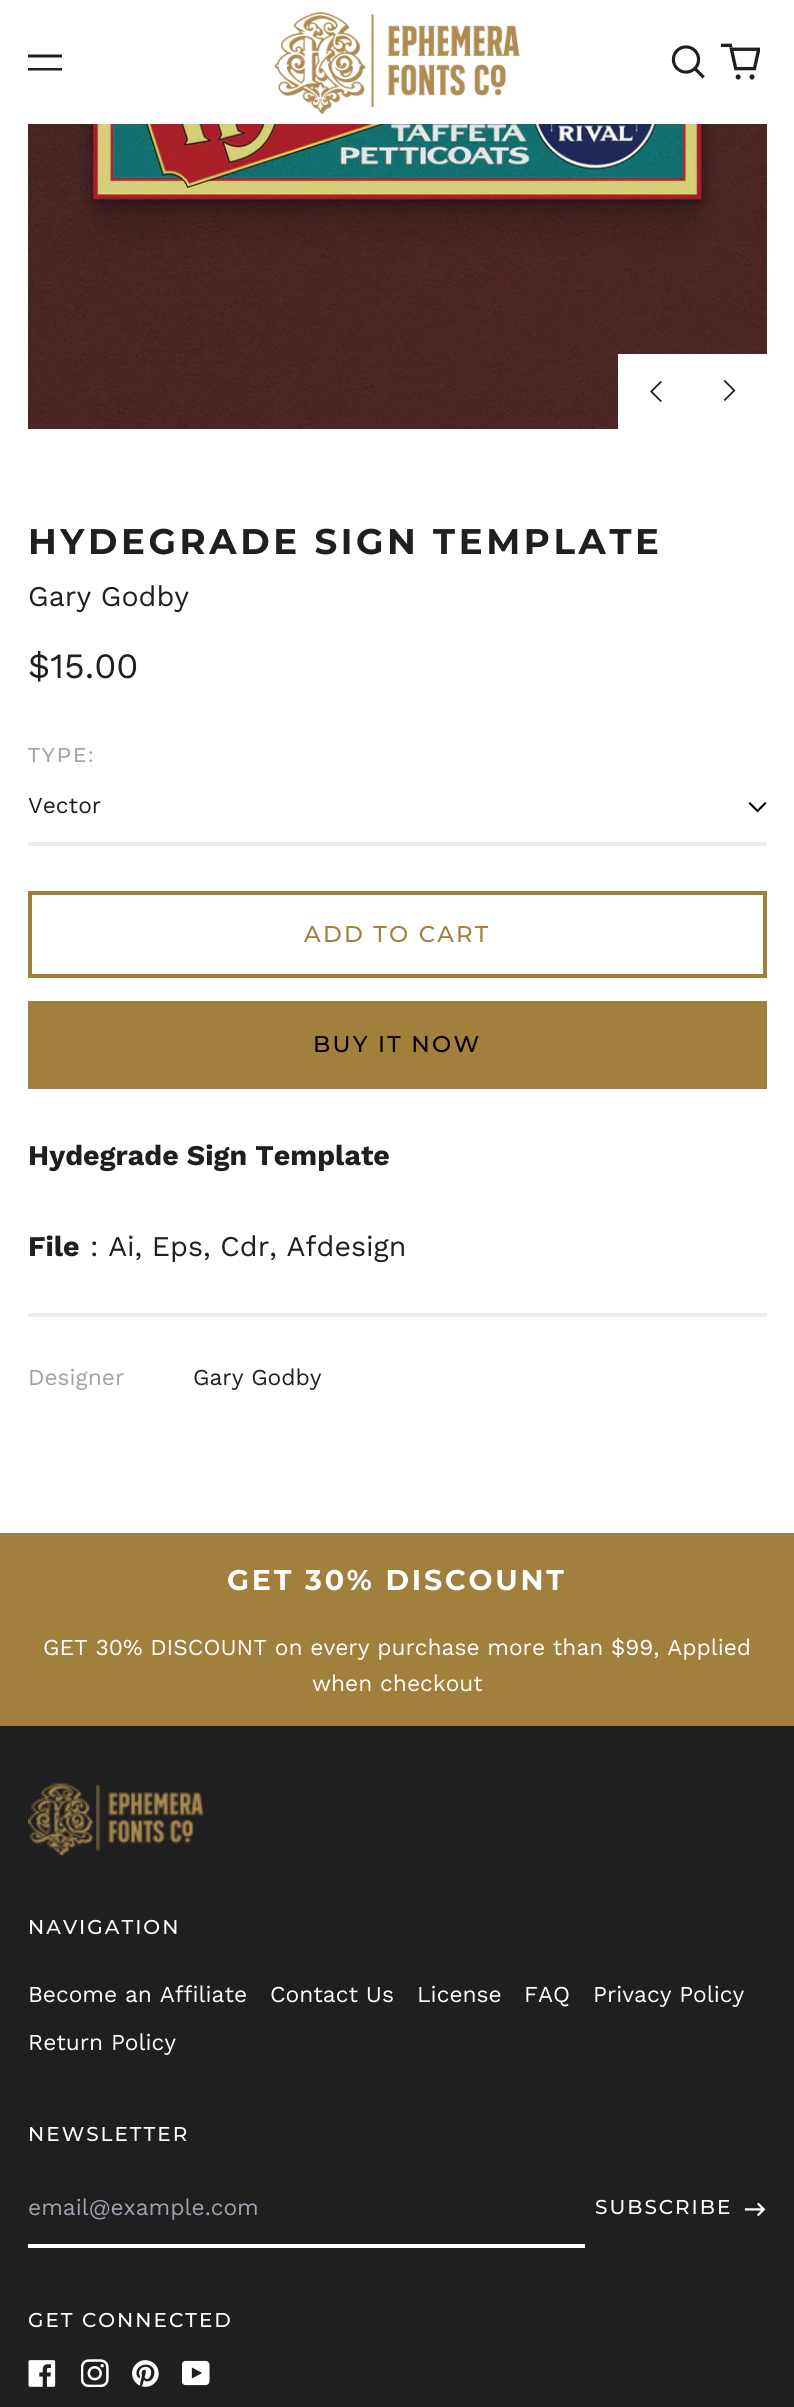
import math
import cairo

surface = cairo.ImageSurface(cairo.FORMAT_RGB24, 794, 2407)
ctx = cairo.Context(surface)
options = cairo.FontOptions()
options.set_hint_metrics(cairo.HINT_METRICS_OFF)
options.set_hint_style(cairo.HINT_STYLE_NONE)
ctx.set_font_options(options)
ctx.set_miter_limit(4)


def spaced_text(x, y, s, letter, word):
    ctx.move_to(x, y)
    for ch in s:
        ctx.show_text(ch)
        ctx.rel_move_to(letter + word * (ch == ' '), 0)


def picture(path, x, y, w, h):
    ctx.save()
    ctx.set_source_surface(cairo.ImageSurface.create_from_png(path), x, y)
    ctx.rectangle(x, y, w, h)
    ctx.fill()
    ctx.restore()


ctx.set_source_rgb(1, 1, 1)
ctx.paint()
ctx.set_source_rgb(0.122, 0.122, 0.122)
ctx.set_fill_rule(cairo.FILL_RULE_EVEN_ODD)
ctx.new_path()
ctx.move_to(62, 68)
ctx.line_to(62, 70.5)
ctx.line_to(28, 70.5)
ctx.line_to(28, 68)
ctx.close_path()
ctx.move_to(62, 54.5)
ctx.line_to(62, 57.5)
ctx.line_to(28, 57.5)
ctx.line_to(28, 54.5)
ctx.close_path()
ctx.fill()
picture("img1.png", 274, 12, 246, 102)
picture("img2.png", 671, 45, 34, 34)
picture("img3.png", 721, 43, 39, 37)
picture("img4.png", 28, 124, 739, 305)
ctx.set_source_rgb(1, 1, 1)
ctx.rectangle(618, 354, 149, 75)
ctx.fill()
ctx.set_source_rgb(0.122, 0.122, 0.122)
ctx.new_path()
ctx.move_to(652.5, 391.5)
ctx.line_to(662, 401)
ctx.line_to(660.5, 402)
ctx.line_to(650, 391.5)
ctx.line_to(660.5, 381)
ctx.line_to(662, 382)
ctx.close_path()
ctx.fill()
ctx.new_path()
ctx.move_to(733, 390.5)
ctx.line_to(723.5, 381)
ctx.line_to(725, 380)
ctx.line_to(735.5, 390.5)
ctx.line_to(725, 401)
ctx.line_to(723.5, 400)
ctx.close_path()
ctx.fill()
ctx.select_font_face("Montserrat", cairo.FONT_SLANT_NORMAL, cairo.FONT_WEIGHT_BOLD)
ctx.set_font_size(35.6)
spaced_text(28, 554, "HYDEGRADE SIGN TEMPLATE", 3.6, 0)
ctx.select_font_face("Work Sans")
ctx.set_font_size(28.5)
ctx.move_to(28, 606)
ctx.show_text("Gary Godby")
ctx.set_font_size(35.6)
ctx.move_to(28, 678)
ctx.show_text("$15.00")
ctx.select_font_face("Montserrat Medium")
ctx.set_font_size(20)
ctx.set_source_rgb(0.639, 0.639, 0.639)
spaced_text(28, 762, "TYPE:", 2, 0)
ctx.set_source_rgb(0, 0, 0)
ctx.new_path()
ctx.move_to(765, 802)
ctx.line_to(766.5, 803.5)
ctx.line_to(757.5, 812.5)
ctx.line_to(748.5, 803.5)
ctx.line_to(750, 802)
ctx.line_to(757.5, 809.5)
ctx.close_path()
ctx.fill()
ctx.set_source_rgb(0.922, 0.922, 0.922)
ctx.rectangle(28, 842, 739, 4)
ctx.fill()
ctx.select_font_face("Work Sans")
ctx.set_font_size(22.75)
ctx.set_source_rgb(0.122, 0.122, 0.122)
ctx.move_to(28, 813)
ctx.show_text("Vector")
ctx.rectangle(30, 893, 735, 83)
ctx.set_source_rgb(0.631, 0.502, 0.239)
ctx.set_line_width(4)
ctx.stroke()
ctx.select_font_face("Montserrat Medium")
spaced_text(304, 942, "ADD TO CART", 2.25, 0)
ctx.rectangle(28, 1001, 739, 88)
ctx.fill()
ctx.set_source_rgb(0, 0, 0)
spaced_text(313, 1052, "BUY IT NOW", 2.25, 0)
ctx.select_font_face("Work Sans", cairo.FONT_SLANT_NORMAL, cairo.FONT_WEIGHT_BOLD)
ctx.set_font_size(28.5)
ctx.set_source_rgb(0.122, 0.122, 0.122)
ctx.move_to(28, 1165)
ctx.show_text("Hydegrade Sign Template")
ctx.move_to(28, 1256)
ctx.show_text("File")
ctx.select_font_face("Work Sans")
ctx.move_to(90, 1256)
ctx.show_text(": Ai, Eps, Cdr, Afdesign")
ctx.set_source_rgb(0.922, 0.922, 0.922)
ctx.rectangle(28, 1313, 739, 4)
ctx.fill()
ctx.set_font_size(22.75)
ctx.set_source_rgb(0.639, 0.639, 0.639)
ctx.move_to(28, 1385)
ctx.show_text("Designer")
ctx.set_source_rgb(0.122, 0.122, 0.122)
ctx.move_to(193, 1385)
ctx.show_text("Gary Godby")
ctx.set_source_rgb(0.631, 0.502, 0.239)
ctx.rectangle(0, 1533, 794, 193)
ctx.fill()
ctx.select_font_face("Montserrat", cairo.FONT_SLANT_NORMAL, cairo.FONT_WEIGHT_BOLD)
ctx.set_font_size(28.5)
ctx.set_source_rgb(1, 1, 1)
spaced_text(227, 1590, "GET 30% DISCOUNT", 2.8, 0)
ctx.select_font_face("Work Sans")
ctx.set_font_size(22.75)
ctx.move_to(43, 1655)
ctx.show_text("GET 30% DISCOUNT on every purchase more than $99, Applied")
ctx.move_to(312, 1691)
ctx.show_text("when checkout")
ctx.set_source_rgb(0.122, 0.122, 0.122)
ctx.rectangle(0, 1726, 794, 681)
ctx.fill()
picture("img5.png", 28, 1783, 175, 73)
ctx.select_font_face("Montserrat Medium")
ctx.set_font_size(20)
ctx.set_source_rgb(1, 1, 1)
spaced_text(28, 1934, "NAVIGATION", 2, 0)
ctx.select_font_face("Work Sans")
ctx.set_font_size(22.75)
ctx.move_to(28, 2002)
ctx.show_text("Become an Affiliate")
ctx.move_to(270, 2002)
ctx.show_text("Contact Us")
ctx.move_to(417, 2002)
ctx.show_text("License")
ctx.move_to(524, 2002)
ctx.show_text("FAQ")
ctx.move_to(593, 2002)
ctx.show_text("Privacy Policy")
ctx.move_to(28, 2050)
ctx.show_text("Return Policy")
ctx.select_font_face("Montserrat Medium")
ctx.set_font_size(20)
spaced_text(28, 2141, "NEWSLETTER", 2, 0)
ctx.rectangle(28, 2244, 557, 4)
ctx.fill()
ctx.select_font_face("Work Sans")
ctx.set_font_size(22.75)
ctx.set_source_rgb(0.612, 0.639, 0.686)
ctx.move_to(28, 2215)
ctx.show_text("email@example.com")
ctx.select_font_face("Montserrat Medium")
ctx.set_font_size(20)
ctx.set_source_rgb(1, 1, 1)
spaced_text(595, 2214, "SUBSCRIBE", 2, 0)
picture("img6.png", 744, 2202, 22, 15)
spaced_text(28, 2327, "GET CONNECTED", 2, 0)
picture("img7.png", 28, 2360, 28, 27)
picture("img8.png", 81, 2359, 28, 28)
picture("img9.png", 132, 2360, 27, 27)
picture("img10.png", 182, 2360, 28, 26)
surface.write_to_png("page.png")
